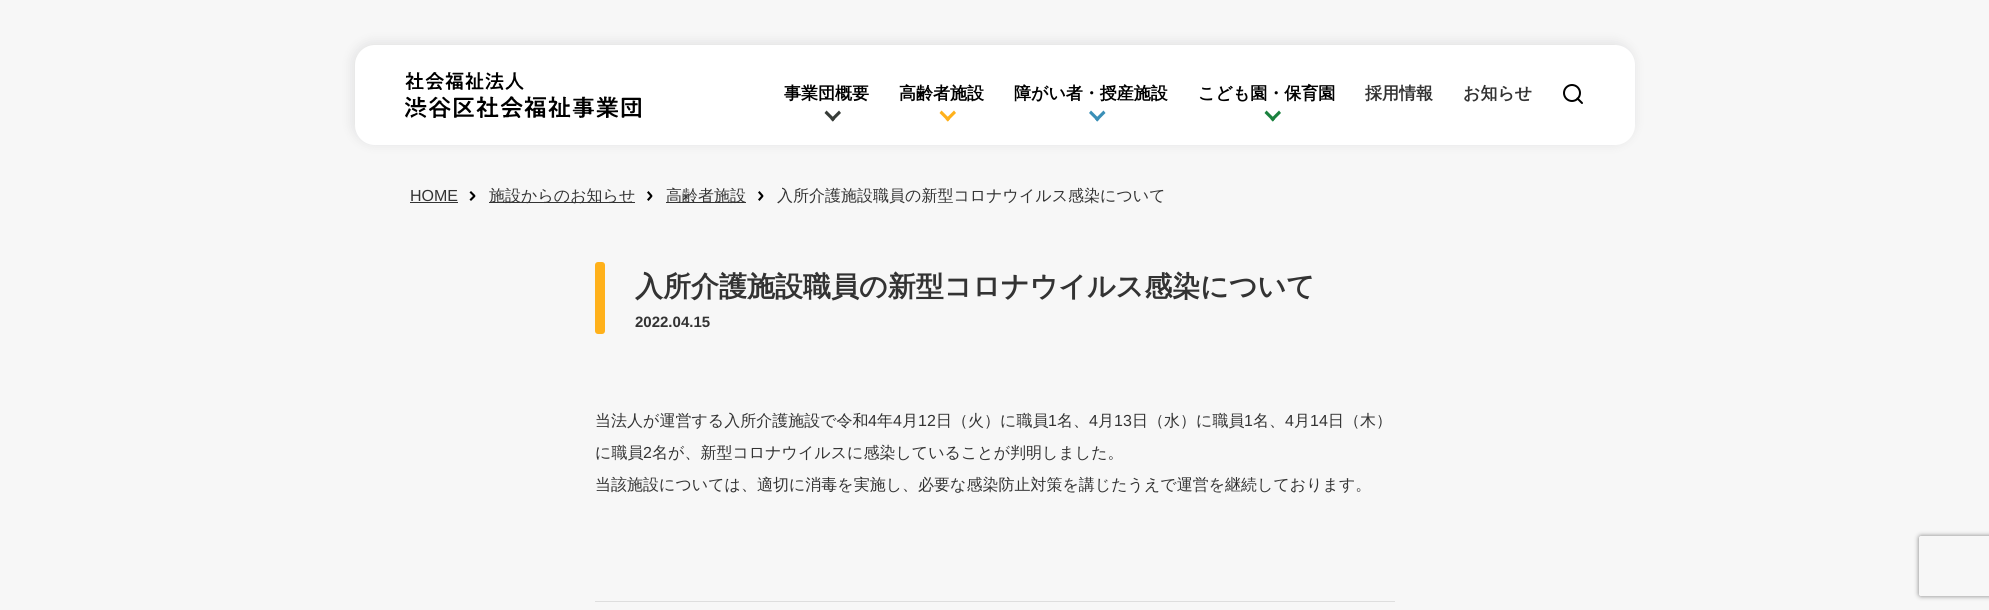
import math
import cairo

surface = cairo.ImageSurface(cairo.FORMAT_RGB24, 1989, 610)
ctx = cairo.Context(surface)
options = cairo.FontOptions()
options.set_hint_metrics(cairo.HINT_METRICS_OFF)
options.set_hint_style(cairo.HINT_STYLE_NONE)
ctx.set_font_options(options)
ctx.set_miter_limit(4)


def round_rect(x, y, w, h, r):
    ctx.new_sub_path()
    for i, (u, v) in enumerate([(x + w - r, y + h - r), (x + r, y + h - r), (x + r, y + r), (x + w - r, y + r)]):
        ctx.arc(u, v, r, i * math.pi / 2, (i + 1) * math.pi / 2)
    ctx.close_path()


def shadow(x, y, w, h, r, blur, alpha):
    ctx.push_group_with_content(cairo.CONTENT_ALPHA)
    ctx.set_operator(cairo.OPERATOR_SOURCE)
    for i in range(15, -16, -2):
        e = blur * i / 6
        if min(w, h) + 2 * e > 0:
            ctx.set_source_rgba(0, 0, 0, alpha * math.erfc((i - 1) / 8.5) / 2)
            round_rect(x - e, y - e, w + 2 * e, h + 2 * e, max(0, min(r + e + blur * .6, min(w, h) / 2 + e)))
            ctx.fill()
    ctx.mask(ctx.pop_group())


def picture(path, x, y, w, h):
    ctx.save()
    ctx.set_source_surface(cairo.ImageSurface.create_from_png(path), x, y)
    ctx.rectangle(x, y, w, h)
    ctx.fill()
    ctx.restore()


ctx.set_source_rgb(0.965, 0.965, 0.965)
ctx.paint()
ctx.set_source_rgb(0.043, 0.047, 0.063)
shadow(353, 43, 1280, 100, 20, 6, 0.1)
ctx.set_source_rgb(1, 1, 1)
round_rect(355, 45, 1280, 100, 20)
ctx.fill()
picture("img1.png", 405, 72, 236, 46)
ctx.select_font_face("WenQuanYi Zen Hei", cairo.FONT_SLANT_NORMAL, cairo.FONT_WEIGHT_BOLD)
ctx.set_font_size(17)
ctx.set_source_rgb(0, 0, 0)
ctx.move_to(784, 99)
ctx.show_text("事業団概要")
ctx.set_source_rgb(0.216, 0.235, 0.22)
ctx.new_path()
ctx.move_to(826.5, 110.5)
ctx.line_to(835, 119)
ctx.line_to(833, 121.5)
ctx.line_to(824.5, 113)
ctx.close_path()
ctx.fill()
ctx.new_path()
ctx.move_to(830.5, 119)
ctx.line_to(839, 110.5)
ctx.line_to(841, 113)
ctx.line_to(832.5, 121.5)
ctx.close_path()
ctx.fill()
ctx.set_source_rgb(0, 0, 0)
ctx.move_to(899, 99)
ctx.show_text("高齢者施設")
ctx.set_source_rgb(1, 0.694, 0.106)
ctx.new_path()
ctx.move_to(941.5, 110.5)
ctx.line_to(950, 119)
ctx.line_to(948, 121.5)
ctx.line_to(939.5, 113)
ctx.close_path()
ctx.fill()
ctx.new_path()
ctx.move_to(945.5, 119)
ctx.line_to(954, 110.5)
ctx.line_to(956, 113)
ctx.line_to(947.5, 121.5)
ctx.close_path()
ctx.fill()
ctx.set_source_rgb(0, 0, 0)
ctx.move_to(1014, 99)
ctx.show_text("障がい者・授産施設")
ctx.set_source_rgb(0.227, 0.561, 0.718)
ctx.new_path()
ctx.move_to(1091, 110.5)
ctx.line_to(1099.5, 119)
ctx.line_to(1097.5, 121.5)
ctx.line_to(1089, 113)
ctx.close_path()
ctx.fill()
ctx.new_path()
ctx.move_to(1095, 119)
ctx.line_to(1103.5, 110.5)
ctx.line_to(1105.5, 113)
ctx.line_to(1097, 121.5)
ctx.close_path()
ctx.fill()
ctx.set_source_rgb(0, 0, 0)
ctx.move_to(1198, 99)
ctx.show_text("こども園・保育園")
ctx.set_source_rgb(0.106, 0.506, 0.243)
ctx.new_path()
ctx.move_to(1266.5, 110.5)
ctx.line_to(1275, 119)
ctx.line_to(1273, 121.5)
ctx.line_to(1264.5, 113)
ctx.close_path()
ctx.fill()
ctx.new_path()
ctx.move_to(1270.5, 119)
ctx.line_to(1279, 110.5)
ctx.line_to(1281, 113)
ctx.line_to(1272.5, 121.5)
ctx.close_path()
ctx.fill()
ctx.set_source_rgb(0.2, 0.2, 0.2)
ctx.move_to(1365, 99)
ctx.show_text("採用情報")
ctx.move_to(1463, 99)
ctx.show_text("お知らせ")
ctx.new_path()
ctx.arc(1572, 93, 8, 0, 2 * math.pi)
ctx.set_source_rgb(0, 0, 0)
ctx.stroke()
ctx.new_path()
ctx.move_to(1582, 103)
ctx.line_to(1577.5, 98.5)
ctx.set_line_cap(cairo.LINE_CAP_ROUND)
ctx.set_line_join(cairo.LINE_JOIN_ROUND)
ctx.stroke()
ctx.select_font_face("Liberation Sans")
ctx.set_font_size(16)
ctx.set_source_rgb(0.2, 0.2, 0.2)
ctx.move_to(410, 201)
ctx.show_text("HOME")
ctx.rectangle(410, 202, 48, 1)
ctx.fill()
ctx.set_source_rgb(0, 0, 0)
ctx.new_path()
ctx.move_to(471, 191)
ctx.line_to(475.5, 195.5)
ctx.line_to(474, 197)
ctx.line_to(469.5, 192.5)
ctx.close_path()
ctx.fill()
ctx.new_path()
ctx.move_to(469.5, 199.5)
ctx.line_to(474, 195)
ctx.line_to(475.5, 196.5)
ctx.line_to(471, 201)
ctx.close_path()
ctx.fill()
ctx.set_source_rgb(0.2, 0.2, 0.2)
ctx.rectangle(489, 202, 146, 1)
ctx.fill()
ctx.select_font_face("WenQuanYi Zen Hei Medium")
ctx.move_to(489, 201)
ctx.show_text("施設からのお知らせ")
ctx.set_source_rgb(0, 0, 0)
ctx.new_path()
ctx.move_to(648.5, 191)
ctx.line_to(652.5, 195.5)
ctx.line_to(651, 197)
ctx.line_to(647, 192.5)
ctx.close_path()
ctx.fill()
ctx.new_path()
ctx.move_to(647, 199.5)
ctx.line_to(651, 195)
ctx.line_to(652.5, 196.5)
ctx.line_to(648.5, 201)
ctx.close_path()
ctx.fill()
ctx.set_source_rgb(0.2, 0.2, 0.2)
ctx.rectangle(666, 202, 80, 1)
ctx.fill()
ctx.move_to(666, 201)
ctx.show_text("高齢者施設")
ctx.set_source_rgb(0, 0, 0)
ctx.new_path()
ctx.move_to(759.5, 191)
ctx.line_to(763.5, 195.5)
ctx.line_to(762, 197)
ctx.line_to(758, 192.5)
ctx.close_path()
ctx.fill()
ctx.new_path()
ctx.move_to(758, 199.5)
ctx.line_to(762, 195)
ctx.line_to(763.5, 196.5)
ctx.line_to(759.5, 201)
ctx.close_path()
ctx.fill()
ctx.set_source_rgb(0.2, 0.2, 0.2)
ctx.move_to(777, 201)
ctx.show_text("入所介護施設職員の新型コロナウイルス感染について")
ctx.set_source_rgb(1, 0.694, 0.106)
round_rect(595, 262, 10, 72, 3)
ctx.fill()
ctx.select_font_face("WenQuanYi Zen Hei", cairo.FONT_SLANT_NORMAL, cairo.FONT_WEIGHT_BOLD)
ctx.set_font_size(28)
ctx.set_source_rgb(0.2, 0.2, 0.2)
ctx.move_to(635, 296)
ctx.show_text("入所介護施設職員の新型コロナウイルス感染について")
ctx.select_font_face("Liberation Sans", cairo.FONT_SLANT_NORMAL, cairo.FONT_WEIGHT_BOLD)
ctx.set_font_size(15)
ctx.move_to(635, 327)
ctx.show_text("2022.04.15")
ctx.set_source_rgb(0.871, 0.871, 0.871)
ctx.rectangle(595, 601, 800, 1)
ctx.fill()
ctx.select_font_face("WenQuanYi Zen Hei Medium")
ctx.set_font_size(16)
ctx.set_source_rgb(0.2, 0.2, 0.2)
ctx.move_to(595, 426)
ctx.show_text("当法人が運営する入所介護施設で令和")
ctx.select_font_face("Liberation Sans")
ctx.move_to(868, 426)
ctx.show_text("4")
ctx.select_font_face("WenQuanYi Zen Hei Medium")
ctx.move_to(877, 426)
ctx.show_text("年")
ctx.select_font_face("Liberation Sans")
ctx.move_to(893, 426)
ctx.show_text("4")
ctx.select_font_face("WenQuanYi Zen Hei Medium")
ctx.move_to(902, 426)
ctx.show_text("月")
ctx.select_font_face("Liberation Sans")
ctx.move_to(918, 426)
ctx.show_text("12")
ctx.select_font_face("WenQuanYi Zen Hei Medium")
ctx.move_to(936, 426)
ctx.show_text("日（火）に職員")
ctx.select_font_face("Liberation Sans")
ctx.move_to(1048, 426)
ctx.show_text("1")
ctx.select_font_face("WenQuanYi Zen Hei Medium")
ctx.move_to(1057, 426)
ctx.show_text("名、")
ctx.select_font_face("Liberation Sans")
ctx.move_to(1089, 426)
ctx.show_text("4")
ctx.select_font_face("WenQuanYi Zen Hei Medium")
ctx.move_to(1098, 426)
ctx.show_text("月")
ctx.select_font_face("Liberation Sans")
ctx.move_to(1114, 426)
ctx.show_text("13")
ctx.select_font_face("WenQuanYi Zen Hei Medium")
ctx.move_to(1132, 426)
ctx.show_text("日（水）に職員")
ctx.select_font_face("Liberation Sans")
ctx.move_to(1244, 426)
ctx.show_text("1")
ctx.select_font_face("WenQuanYi Zen Hei Medium")
ctx.move_to(1253, 426)
ctx.show_text("名、")
ctx.select_font_face("Liberation Sans")
ctx.move_to(1285, 426)
ctx.show_text("4")
ctx.select_font_face("WenQuanYi Zen Hei Medium")
ctx.move_to(1294, 426)
ctx.show_text("月")
ctx.select_font_face("Liberation Sans")
ctx.move_to(1310, 426)
ctx.show_text("14")
ctx.select_font_face("WenQuanYi Zen Hei Medium")
ctx.move_to(1328, 426)
ctx.show_text("日（木）")
ctx.move_to(595, 458)
ctx.show_text("に職員")
ctx.select_font_face("Liberation Sans")
ctx.move_to(643, 458)
ctx.show_text("2")
ctx.select_font_face("WenQuanYi Zen Hei Medium")
ctx.move_to(652, 458)
ctx.show_text("名が、新型コロナウイルスに感染していることが判明しました。")
ctx.move_to(595, 490)
ctx.show_text("当該施設については、適切に消毒を実施し、必要な感染防止対策を講じたうえで運営を継続しております。")
ctx.save()
ctx.set_fill_rule(cairo.FILL_RULE_EVEN_ODD)
ctx.new_path()
ctx.move_to(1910, 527)
ctx.line_to(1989, 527)
ctx.line_to(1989, 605)
ctx.line_to(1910, 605)
ctx.close_path()
ctx.move_to(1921, 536)
ctx.line_to(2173, 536)
ctx.curve_to(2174, 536, 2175, 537, 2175, 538)
ctx.line_to(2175, 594)
ctx.curve_to(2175, 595, 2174, 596, 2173, 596)
ctx.line_to(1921, 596)
ctx.curve_to(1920, 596, 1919, 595, 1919, 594)
ctx.line_to(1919, 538)
ctx.curve_to(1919, 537, 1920, 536, 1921, 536)
ctx.close_path()
ctx.clip()
ctx.set_source_rgb(0.502, 0.502, 0.502)
shadow(1919, 536, 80, 60, 2, 2.5, 1)
ctx.restore()
surface.write_to_png("page.png")
